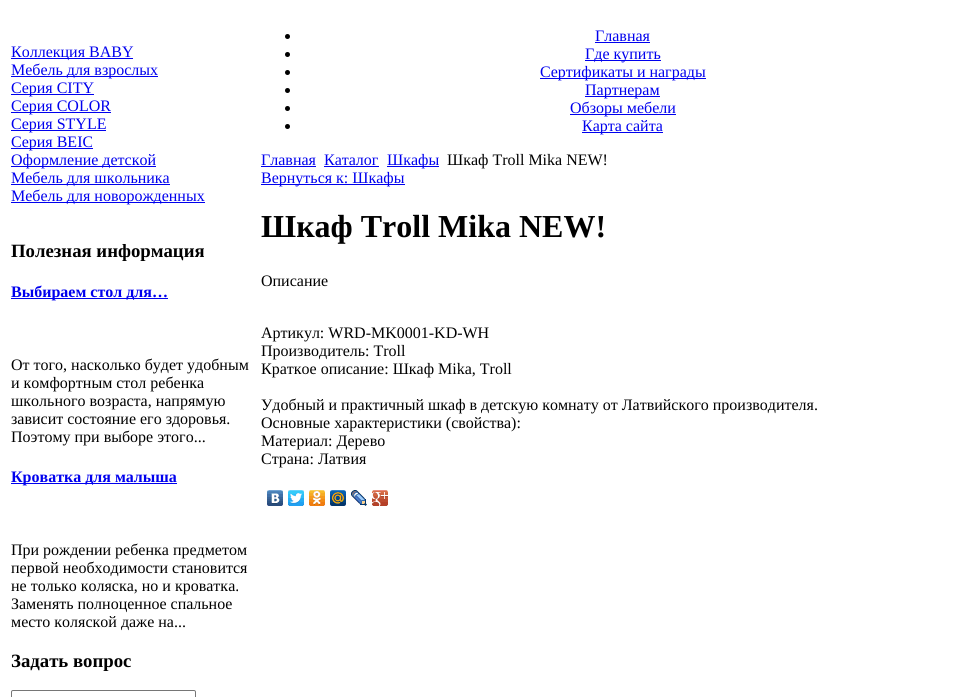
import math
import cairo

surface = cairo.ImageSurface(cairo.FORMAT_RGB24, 955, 697)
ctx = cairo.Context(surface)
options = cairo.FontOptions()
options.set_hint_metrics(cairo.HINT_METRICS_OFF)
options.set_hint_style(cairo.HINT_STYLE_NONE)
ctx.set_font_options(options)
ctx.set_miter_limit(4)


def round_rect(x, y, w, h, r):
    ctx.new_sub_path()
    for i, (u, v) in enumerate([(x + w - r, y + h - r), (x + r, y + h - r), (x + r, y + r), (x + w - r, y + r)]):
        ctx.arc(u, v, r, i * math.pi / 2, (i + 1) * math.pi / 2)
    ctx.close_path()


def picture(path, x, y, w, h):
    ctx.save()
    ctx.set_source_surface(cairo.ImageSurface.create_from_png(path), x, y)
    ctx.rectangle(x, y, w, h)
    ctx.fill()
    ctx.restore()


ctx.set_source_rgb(1, 1, 1)
ctx.paint()
ctx.set_source_rgb(0, 0, 0.933)
ctx.rectangle(11, 58, 122, 1)
ctx.fill()
ctx.select_font_face("Liberation Serif")
ctx.set_font_size(16)
ctx.move_to(11, 57)
ctx.show_text("Коллекция BABY")
ctx.rectangle(11, 76, 147, 1)
ctx.fill()
ctx.move_to(11, 75)
ctx.show_text("Мебель для взрослых")
ctx.rectangle(11, 94, 83, 1)
ctx.fill()
ctx.move_to(11, 93)
ctx.show_text("Серия CITY")
ctx.rectangle(11, 112, 100, 1)
ctx.fill()
ctx.move_to(11, 111)
ctx.show_text("Серия COLOR")
ctx.rectangle(11, 130, 95, 1)
ctx.fill()
ctx.move_to(11, 129)
ctx.show_text("Серия STYLE")
ctx.rectangle(11, 148, 82, 1)
ctx.fill()
ctx.move_to(11, 147)
ctx.show_text("Серия BEIC")
ctx.rectangle(11, 166, 145, 1)
ctx.fill()
ctx.move_to(11, 165)
ctx.show_text("Оформление детской")
ctx.rectangle(11, 184, 159, 1)
ctx.fill()
ctx.move_to(11, 183)
ctx.show_text("Мебель для школьника")
ctx.rectangle(11, 202, 194, 1)
ctx.fill()
ctx.move_to(11, 201)
ctx.show_text("Мебель для новорожденных")
ctx.select_font_face("Liberation Serif", cairo.FONT_SLANT_NORMAL, cairo.FONT_WEIGHT_BOLD)
ctx.set_font_size(18.75)
ctx.set_source_rgb(0, 0, 0)
ctx.move_to(11, 257)
ctx.show_text("Полезная информация")
ctx.set_source_rgb(0, 0, 0.933)
ctx.rectangle(11, 298, 157, 1)
ctx.fill()
ctx.set_font_size(16)
ctx.move_to(11, 297)
ctx.show_text("Выбираем стол для…")
ctx.select_font_face("Liberation Serif")
ctx.set_source_rgb(0, 0, 0)
ctx.move_to(11, 370)
ctx.show_text("От того, насколько будет удобным")
ctx.move_to(11, 388)
ctx.show_text("и комфортным стол ребенка")
ctx.move_to(11, 406)
ctx.show_text("школьного возраста, напрямую")
ctx.move_to(11, 424)
ctx.show_text("зависит состояние его здоровья.")
ctx.move_to(11, 442)
ctx.show_text("Поэтому при выборе этого...")
ctx.set_source_rgb(0, 0, 0.933)
ctx.rectangle(11, 483, 166, 1)
ctx.fill()
ctx.select_font_face("Liberation Serif", cairo.FONT_SLANT_NORMAL, cairo.FONT_WEIGHT_BOLD)
ctx.move_to(11, 482)
ctx.show_text("Кроватка для малыша")
ctx.select_font_face("Liberation Serif")
ctx.set_source_rgb(0, 0, 0)
ctx.move_to(11, 555)
ctx.show_text("При рождении ребенка предметом")
ctx.move_to(11, 573)
ctx.show_text("первой необходимости становится")
ctx.move_to(11, 591)
ctx.show_text("не только коляска, но и кроватка.")
ctx.move_to(11, 609)
ctx.show_text("Заменять полноценное спальное")
ctx.move_to(11, 627)
ctx.show_text("место коляской даже на...")
ctx.select_font_face("Liberation Serif", cairo.FONT_SLANT_NORMAL, cairo.FONT_WEIGHT_BOLD)
ctx.set_font_size(18.75)
ctx.move_to(11, 667)
ctx.show_text("Задать вопрос")
round_rect(11.5, 690.5, 184, 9, 1.5)
ctx.set_source_rgb(0.463, 0.463, 0.463)
ctx.set_line_width(1)
ctx.stroke()
ctx.set_source_rgb(0, 0, 0)
ctx.arc(287.5, 36.5, 2.5, 0, 2 * math.pi)
ctx.fill()
ctx.select_font_face("Liberation Serif")
ctx.set_font_size(16)
ctx.set_source_rgb(0, 0, 0.933)
ctx.move_to(595, 41)
ctx.show_text("Главная")
ctx.rectangle(595, 42, 55, 1)
ctx.fill()
ctx.set_source_rgb(0, 0, 0)
ctx.arc(287.5, 54.5, 2.5, 0, 2 * math.pi)
ctx.fill()
ctx.set_source_rgb(0, 0, 0.933)
ctx.rectangle(585, 60, 76, 1)
ctx.fill()
ctx.move_to(585, 59)
ctx.show_text("Где купить")
ctx.set_source_rgb(0, 0, 0)
ctx.new_path()
ctx.arc(287.5, 72.5, 2.5, 0, 2 * math.pi)
ctx.fill()
ctx.set_source_rgb(0, 0, 0.933)
ctx.rectangle(540, 78, 166, 1)
ctx.fill()
ctx.move_to(540, 77)
ctx.show_text("Сертификаты и награды")
ctx.set_source_rgb(0, 0, 0)
ctx.new_path()
ctx.arc(287.5, 90.5, 2.5, 0, 2 * math.pi)
ctx.fill()
ctx.set_source_rgb(0, 0, 0.933)
ctx.rectangle(585, 96, 75, 1)
ctx.fill()
ctx.move_to(585, 95)
ctx.show_text("Партнерам")
ctx.set_source_rgb(0, 0, 0)
ctx.new_path()
ctx.arc(287.5, 108.5, 2.5, 0, 2 * math.pi)
ctx.fill()
ctx.set_source_rgb(0, 0, 0.933)
ctx.rectangle(570, 114, 106, 1)
ctx.fill()
ctx.move_to(570, 113)
ctx.show_text("Обзоры мебели")
ctx.set_source_rgb(0, 0, 0)
ctx.new_path()
ctx.arc(287.5, 126.5, 2.5, 0, 2 * math.pi)
ctx.fill()
ctx.set_source_rgb(0, 0, 0.933)
ctx.rectangle(582, 132, 81, 1)
ctx.fill()
ctx.move_to(582, 131)
ctx.show_text("Карта сайта")
ctx.move_to(261, 165)
ctx.show_text("Главная")
ctx.rectangle(261, 166, 55, 1)
ctx.fill()
ctx.move_to(324, 165)
ctx.show_text("Каталог")
ctx.rectangle(324, 166, 55, 1)
ctx.fill()
ctx.rectangle(387, 166, 52, 1)
ctx.fill()
ctx.move_to(387, 165)
ctx.show_text("Шкафы")
ctx.set_source_rgb(0, 0, 0)
ctx.move_to(447, 165)
ctx.show_text("Шкаф Troll Mika NEW!")
ctx.set_source_rgb(0, 0, 0.933)
ctx.rectangle(261, 184, 144, 1)
ctx.fill()
ctx.move_to(261, 183)
ctx.show_text("Вернуться к: Шкафы")
ctx.select_font_face("Liberation Serif", cairo.FONT_SLANT_NORMAL, cairo.FONT_WEIGHT_BOLD)
ctx.set_font_size(32)
ctx.set_source_rgb(0, 0, 0)
ctx.move_to(261, 237)
ctx.show_text("Шкаф Troll Mika NEW!")
ctx.select_font_face("Liberation Serif")
ctx.set_font_size(16)
ctx.move_to(261, 286)
ctx.show_text("Описание")
ctx.move_to(261, 338)
ctx.show_text("Артикул: WRD-MK0001-KD-WH")
ctx.move_to(261, 356)
ctx.show_text("Производитель: Troll")
ctx.move_to(261, 374)
ctx.show_text("Краткое описание: Шкаф Mika, Troll")
ctx.move_to(261, 410)
ctx.show_text("Удобный и практичный шкаф в детскую комнату от Латвийского производителя.")
ctx.move_to(261, 428)
ctx.show_text("Основные характеристики (свойства):")
ctx.move_to(261, 446)
ctx.show_text("Материал: Дерево")
ctx.move_to(261, 464)
ctx.show_text("Страна: Латвия")
picture("img1.png", 267, 490, 16, 16)
picture("img2.png", 288, 490, 16, 16)
picture("img3.png", 309, 490, 16, 16)
picture("img4.png", 330, 490, 16, 16)
picture("img5.png", 351, 490, 16, 16)
picture("img6.png", 372, 490, 16, 16)
surface.write_to_png("page.png")
